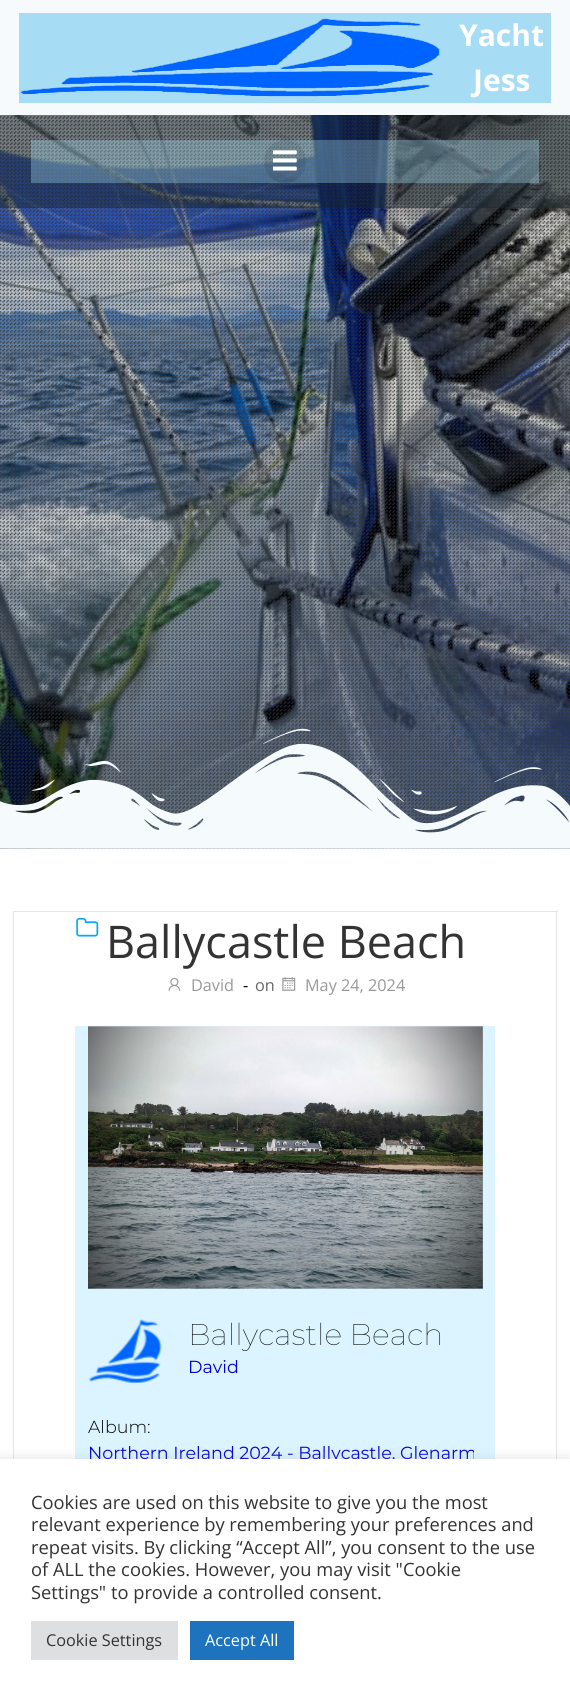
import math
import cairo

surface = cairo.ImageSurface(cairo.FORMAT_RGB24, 570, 1697)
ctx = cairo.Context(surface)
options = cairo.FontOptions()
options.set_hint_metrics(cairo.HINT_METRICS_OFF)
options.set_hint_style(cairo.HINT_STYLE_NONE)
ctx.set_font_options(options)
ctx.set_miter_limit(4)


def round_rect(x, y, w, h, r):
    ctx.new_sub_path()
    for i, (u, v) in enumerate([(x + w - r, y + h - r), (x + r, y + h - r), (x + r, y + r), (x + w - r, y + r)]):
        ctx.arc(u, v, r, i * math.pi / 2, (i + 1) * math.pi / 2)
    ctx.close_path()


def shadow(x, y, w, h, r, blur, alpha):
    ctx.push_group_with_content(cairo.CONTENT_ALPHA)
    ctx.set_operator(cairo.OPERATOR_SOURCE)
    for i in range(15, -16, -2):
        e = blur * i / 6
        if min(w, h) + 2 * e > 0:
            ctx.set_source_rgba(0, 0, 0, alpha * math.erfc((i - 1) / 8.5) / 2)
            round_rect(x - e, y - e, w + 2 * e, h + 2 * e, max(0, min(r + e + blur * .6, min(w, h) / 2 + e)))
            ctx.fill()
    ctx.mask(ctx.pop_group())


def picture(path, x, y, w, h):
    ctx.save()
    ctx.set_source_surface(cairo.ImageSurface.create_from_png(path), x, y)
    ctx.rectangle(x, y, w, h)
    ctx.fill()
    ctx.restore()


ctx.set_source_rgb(1, 1, 1)
ctx.paint()
ctx.set_source_rgb(0.961, 0.98, 0.992)
ctx.rectangle(0, 0, 570, 115)
ctx.fill()
ctx.set_source_rgb(0.651, 0.863, 0.957)
ctx.rectangle(19, 13, 532, 90)
ctx.fill()
picture("img1.png", 20, 18, 420, 78)
picture("img2.png", 21, 19, 419, 78)
ctx.select_font_face("Open Sans", cairo.FONT_SLANT_NORMAL, cairo.FONT_WEIGHT_BOLD)
ctx.set_font_size(30)
ctx.set_source_rgb(1, 1, 1)
ctx.move_to(459, 46)
ctx.show_text("Yacht")
ctx.move_to(473, 91)
ctx.show_text("Jess")
picture("img4.png", 0, 115, 570, 734)
picture("img5.png", 0, 115, 570, 734)
ctx.set_source_rgba(0.09, 0.145, 0.165, 0.48)
ctx.rectangle(0, 115, 570, 93)
ctx.fill()
ctx.set_source_rgba(0.651, 0.863, 0.957, 0.34)
ctx.rectangle(31, 140, 508, 43)
ctx.fill()
ctx.set_source_rgba(0, 0, 0, 0.1)
round_rect(264, 140, 42, 43, 21)
ctx.fill()
picture("img3.png", 273, 150, 24, 21)
picture("img6.png", 0, 728, 570, 121)
ctx.set_source_rgb(0.902, 0.902, 0.902)
ctx.rectangle(13, 911, 545, 1)
ctx.fill()
ctx.rectangle(556, 911, 1, 548)
ctx.fill()
ctx.rectangle(13, 911, 1, 548)
ctx.fill()
picture("img7.png", 76, 917, 23, 20)
ctx.select_font_face("Open Sans")
ctx.set_font_size(45)
ctx.set_source_rgb(0.2, 0.2, 0.2)
ctx.move_to(106, 958)
ctx.show_text("Ballycastle Beach")
picture("img8.png", 168, 977, 13, 14)
ctx.set_font_size(16.25)
ctx.set_source_rgb(0.6, 0.6, 0.6)
ctx.move_to(191, 991)
ctx.show_text("David")
ctx.set_source_rgb(0, 0, 0)
ctx.move_to(243, 991)
ctx.show_text("-")
ctx.set_source_rgb(0.4, 0.4, 0.4)
ctx.move_to(255, 991)
ctx.show_text("on")
picture("img9.png", 282, 977, 14, 14)
ctx.set_source_rgb(0.6, 0.6, 0.6)
ctx.move_to(305, 991)
ctx.show_text("May 24, 2024")
ctx.set_source_rgb(0.859, 0.957, 1)
ctx.rectangle(75, 1026, 420, 433)
ctx.fill()
picture("img10.png", 88, 1025, 395, 264)
picture("img11.png", 89, 1319, 73, 64)
ctx.select_font_face("Montserrat Thin")
ctx.set_font_size(30)
ctx.set_source_rgb(0, 0, 0)
ctx.move_to(188, 1345)
ctx.show_text("Ballycastle Beach")
ctx.select_font_face("Montserrat")
ctx.set_font_size(17.5)
ctx.set_source_rgb(0, 0, 0.82)
ctx.move_to(188, 1373)
ctx.show_text("David")
ctx.select_font_face("Montserrat Light")
ctx.set_source_rgb(0, 0, 0)
ctx.move_to(88, 1433)
ctx.show_text("Album:")
ctx.save()
ctx.rectangle(88, 1414, 386, 54)
ctx.clip()
ctx.select_font_face("Montserrat")
ctx.set_source_rgb(0, 0, 0.82)
ctx.move_to(88, 1459)
ctx.show_text("Northern Ireland 2024 - Ballycastle, Glenarm")
ctx.restore()
ctx.set_source_rgb(0.675, 0.671, 0.671)
shadow(0, 1458, 570, 238, 0, 6, 0.3)
ctx.set_source_rgb(1, 1, 1)
ctx.rectangle(0, 1459, 570, 238)
ctx.fill()
ctx.select_font_face("Open Sans")
ctx.set_font_size(18.3)
ctx.set_source_rgb(0.2, 0.2, 0.2)
ctx.move_to(31, 1509)
ctx.show_text("Cookies are used on this website to give you the most")
ctx.move_to(31, 1531)
ctx.show_text("relevant experience by remembering your preferences and")
ctx.move_to(31, 1554)
ctx.show_text("repeat visits. By clicking “Accept All”, you consent to the use")
ctx.move_to(31, 1576)
ctx.show_text("of ALL the cookies. However, you may visit \"Cookie")
ctx.move_to(31, 1599)
ctx.show_text("Settings\" to provide a controlled consent.")
ctx.set_source_rgb(0.871, 0.875, 0.878)
ctx.rectangle(31, 1621, 147, 39)
ctx.fill()
ctx.set_font_size(16.25)
ctx.set_source_rgb(0.2, 0.2, 0.2)
ctx.move_to(46, 1646)
ctx.show_text("Cookie Settings")
ctx.set_source_rgb(0.118, 0.451, 0.745)
ctx.rectangle(190, 1621, 104, 39)
ctx.fill()
ctx.set_source_rgb(1, 1, 1)
ctx.move_to(205, 1646)
ctx.show_text("Accept All")
surface.write_to_png("page.png")
